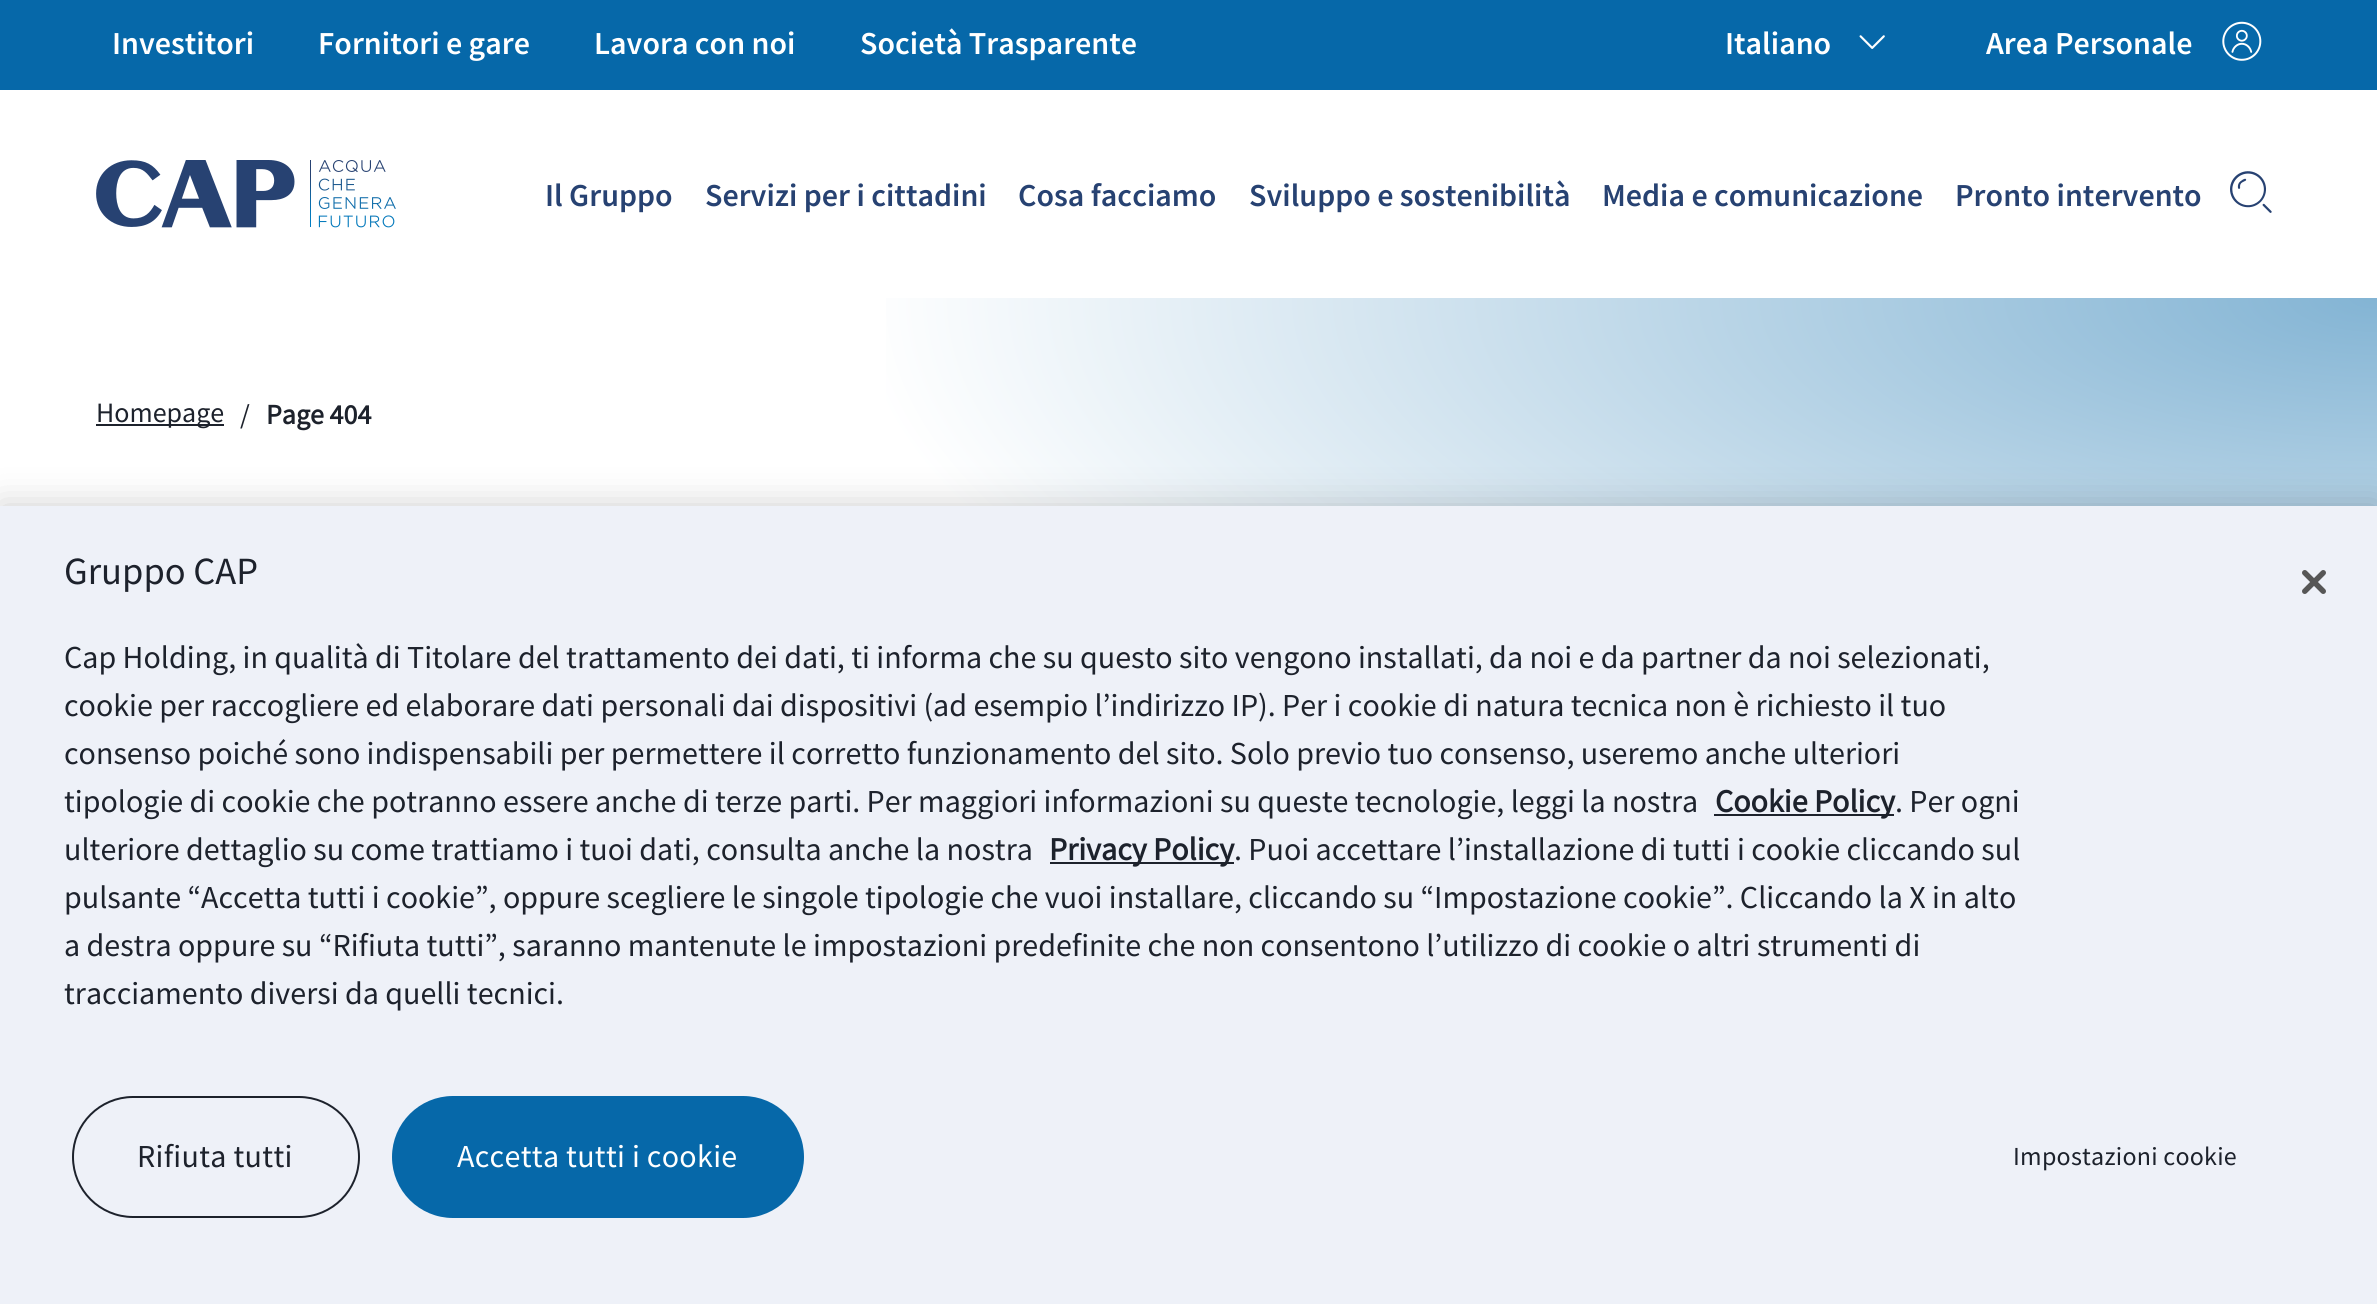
import math
import cairo

surface = cairo.ImageSurface(cairo.FORMAT_RGB24, 2377, 1304)
ctx = cairo.Context(surface)
options = cairo.FontOptions()
options.set_hint_metrics(cairo.HINT_METRICS_OFF)
options.set_hint_style(cairo.HINT_STYLE_NONE)
ctx.set_font_options(options)
ctx.set_miter_limit(4)


def spaced_text(x, y, s, letter, word):
    ctx.move_to(x, y)
    for ch in s:
        ctx.show_text(ch)
        ctx.rel_move_to(letter + word * (ch == ' '), 0)


def round_rect(x, y, w, h, r):
    ctx.new_sub_path()
    for i, (u, v) in enumerate([(x + w - r, y + h - r), (x + r, y + h - r), (x + r, y + r), (x + w - r, y + r)]):
        ctx.arc(u, v, r, i * math.pi / 2, (i + 1) * math.pi / 2)
    ctx.close_path()


def shadow(x, y, w, h, r, blur, alpha):
    ctx.push_group_with_content(cairo.CONTENT_ALPHA)
    ctx.set_operator(cairo.OPERATOR_SOURCE)
    for i in range(15, -16, -2):
        e = blur * i / 6
        if min(w, h) + 2 * e > 0:
            ctx.set_source_rgba(0, 0, 0, alpha * math.erfc((i - 1) / 8.5) / 2)
            round_rect(x - e, y - e, w + 2 * e, h + 2 * e, max(0, min(r + e + blur * .6, min(w, h) / 2 + e)))
            ctx.fill()
    ctx.mask(ctx.pop_group())


def picture(path, x, y, w, h):
    ctx.save()
    ctx.set_source_surface(cairo.ImageSurface.create_from_png(path), x, y)
    ctx.rectangle(x, y, w, h)
    ctx.fill()
    ctx.restore()


ctx.set_source_rgb(1, 1, 1)
ctx.paint()
ctx.set_source_rgb(0.027, 0.408, 0.663)
ctx.rectangle(0, 0, 2377, 90)
ctx.fill()
ctx.select_font_face("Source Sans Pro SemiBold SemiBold")
ctx.set_font_size(32)
ctx.set_source_rgb(1, 1, 1)
ctx.move_to(112, 54)
ctx.show_text("Investitori")
ctx.move_to(318, 54)
ctx.show_text("Fornitori e gare")
ctx.move_to(594, 54)
ctx.show_text("Lavora con noi")
ctx.move_to(860, 54)
ctx.show_text("Società Trasparente")
ctx.move_to(1725, 54)
ctx.show_text("Italiano")
picture("img1.png", 1859, 35, 26, 14)
ctx.move_to(1986, 54)
ctx.show_text("Area Personale")
picture("img2.png", 2222, 21, 40, 40)
picture("img3.png", 96, 160, 300, 68)
ctx.set_source_rgb(0.153, 0.259, 0.447)
ctx.move_to(545, 206)
ctx.show_text("Il Gruppo")
ctx.move_to(705, 206)
ctx.show_text("Servizi per i cittadini")
ctx.move_to(1018, 206)
ctx.show_text("Cosa facciamo")
ctx.move_to(1249, 206)
ctx.show_text("Sviluppo e sostenibilità")
ctx.move_to(1602, 206)
ctx.show_text("Media e comunicazione")
ctx.move_to(1955, 206)
ctx.show_text("Pronto intervento")
picture("img4.png", 2230, 171, 42, 42)
ctx.set_source_rgb(0.114, 0.133, 0.173)
ctx.rectangle(96, 424, 128, 2)
ctx.fill()
ctx.select_font_face("Source Sans Pro")
ctx.set_font_size(28)
ctx.move_to(96, 422)
ctx.show_text("Homepage")
ctx.move_to(240, 424)
ctx.show_text("/")
ctx.select_font_face("Source Sans Pro", cairo.FONT_SLANT_NORMAL, cairo.FONT_WEIGHT_BOLD)
ctx.move_to(266, 424)
ctx.show_text("Page 404")
gradient = cairo.RadialGradient(0, 0, 0, 0, 0, 1)
gradient.set_matrix(cairo.Matrix(1 / 1522, 0, 0, 1 / 570, -1 * 2378 / 1522, -1 * 298 / 570))
gradient.add_color_stop_rgba(0, 0.514, 0.706, 0.831, 1)
gradient.add_color_stop_rgba(1, 1, 1, 1, 1)
ctx.set_source(gradient)
ctx.rectangle(886, 298, 1491, 208)
ctx.fill()
ctx.set_source_rgb(0, 0, 0)
shadow(0, 506, 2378, 798, 0, 18, 0.2)
ctx.set_source_rgb(0.933, 0.945, 0.969)
ctx.rectangle(0, 506, 2377, 798)
ctx.fill()
ctx.select_font_face("Source Sans Pro")
ctx.set_font_size(38.5)
ctx.set_source_rgb(0.114, 0.133, 0.173)
ctx.move_to(64, 584)
ctx.show_text("Gruppo CAP")
ctx.set_font_size(32)
ctx.move_to(64, 668)
ctx.show_text("Cap Holding, in qualità di Titolare del trattamento dei dati, ti informa che su questo sito vengono installati, da noi e da partner da noi selezionati,")
ctx.move_to(64, 716)
ctx.show_text("cookie per raccogliere ed elaborare dati personali dai dispositivi (ad esempio l’indirizzo IP). Per i cookie di natura tecnica non è richiesto il tuo")
ctx.move_to(64, 764)
ctx.show_text("consenso poiché sono indispensabili per permettere il corretto funzionamento del sito. Solo previo tuo consenso, useremo anche ulteriori")
ctx.move_to(64, 812)
ctx.show_text("tipologie di cookie che potranno essere anche di terze parti. Per maggiori informazioni su queste tecnologie, leggi la nostra")
ctx.rectangle(1714, 814, 180, 2)
ctx.fill()
ctx.select_font_face("Source Sans Pro", cairo.FONT_SLANT_NORMAL, cairo.FONT_WEIGHT_BOLD)
ctx.move_to(1715, 812)
ctx.show_text("Cookie Policy")
ctx.select_font_face("Source Sans Pro")
ctx.move_to(1895, 812)
ctx.show_text(". Per ogni")
ctx.move_to(64, 860)
ctx.show_text("ulteriore dettaglio su come trattiamo i tuoi dati, consulta anche la nostra")
ctx.rectangle(1050, 862, 184, 2)
ctx.fill()
ctx.select_font_face("Source Sans Pro", cairo.FONT_SLANT_NORMAL, cairo.FONT_WEIGHT_BOLD)
ctx.move_to(1049, 860)
ctx.show_text("Privacy Policy")
ctx.select_font_face("Source Sans Pro")
ctx.move_to(1234, 860)
ctx.show_text(". Puoi accettare l’installazione di tutti i cookie cliccando sul")
ctx.move_to(64, 908)
ctx.show_text("pulsante “Accetta tutti i cookie”, oppure scegliere le singole tipologie che vuoi installare, cliccando su “Impostazione cookie”. Cliccando la X in alto")
ctx.move_to(64, 956)
ctx.show_text("a destra oppure su “Rifiuta tutti”, saranno mantenute le impostazioni predefinite che non consentono l’utilizzo di cookie o altri strumenti di")
ctx.move_to(64, 1004)
ctx.show_text("tracciamento diversi da quelli tecnici.")
round_rect(73, 1097, 286, 120, 60)
ctx.stroke()
spaced_text(137, 1167, "Rifiuta tutti", 0.3, 0)
ctx.set_source_rgb(0.027, 0.408, 0.663)
round_rect(393, 1097, 410, 120, 60)
ctx.fill_preserve()
ctx.stroke()
ctx.set_source_rgb(1, 1, 1)
spaced_text(457, 1167, "Accetta tutti i cookie", 0.3, 0)
ctx.set_font_size(26)
ctx.set_source_rgb(0.114, 0.133, 0.173)
spaced_text(2013, 1165, "Impostazioni cookie", 0.25, 0)
picture("img5.png", 2302, 570, 24, 24)
surface.write_to_png("page.png")
